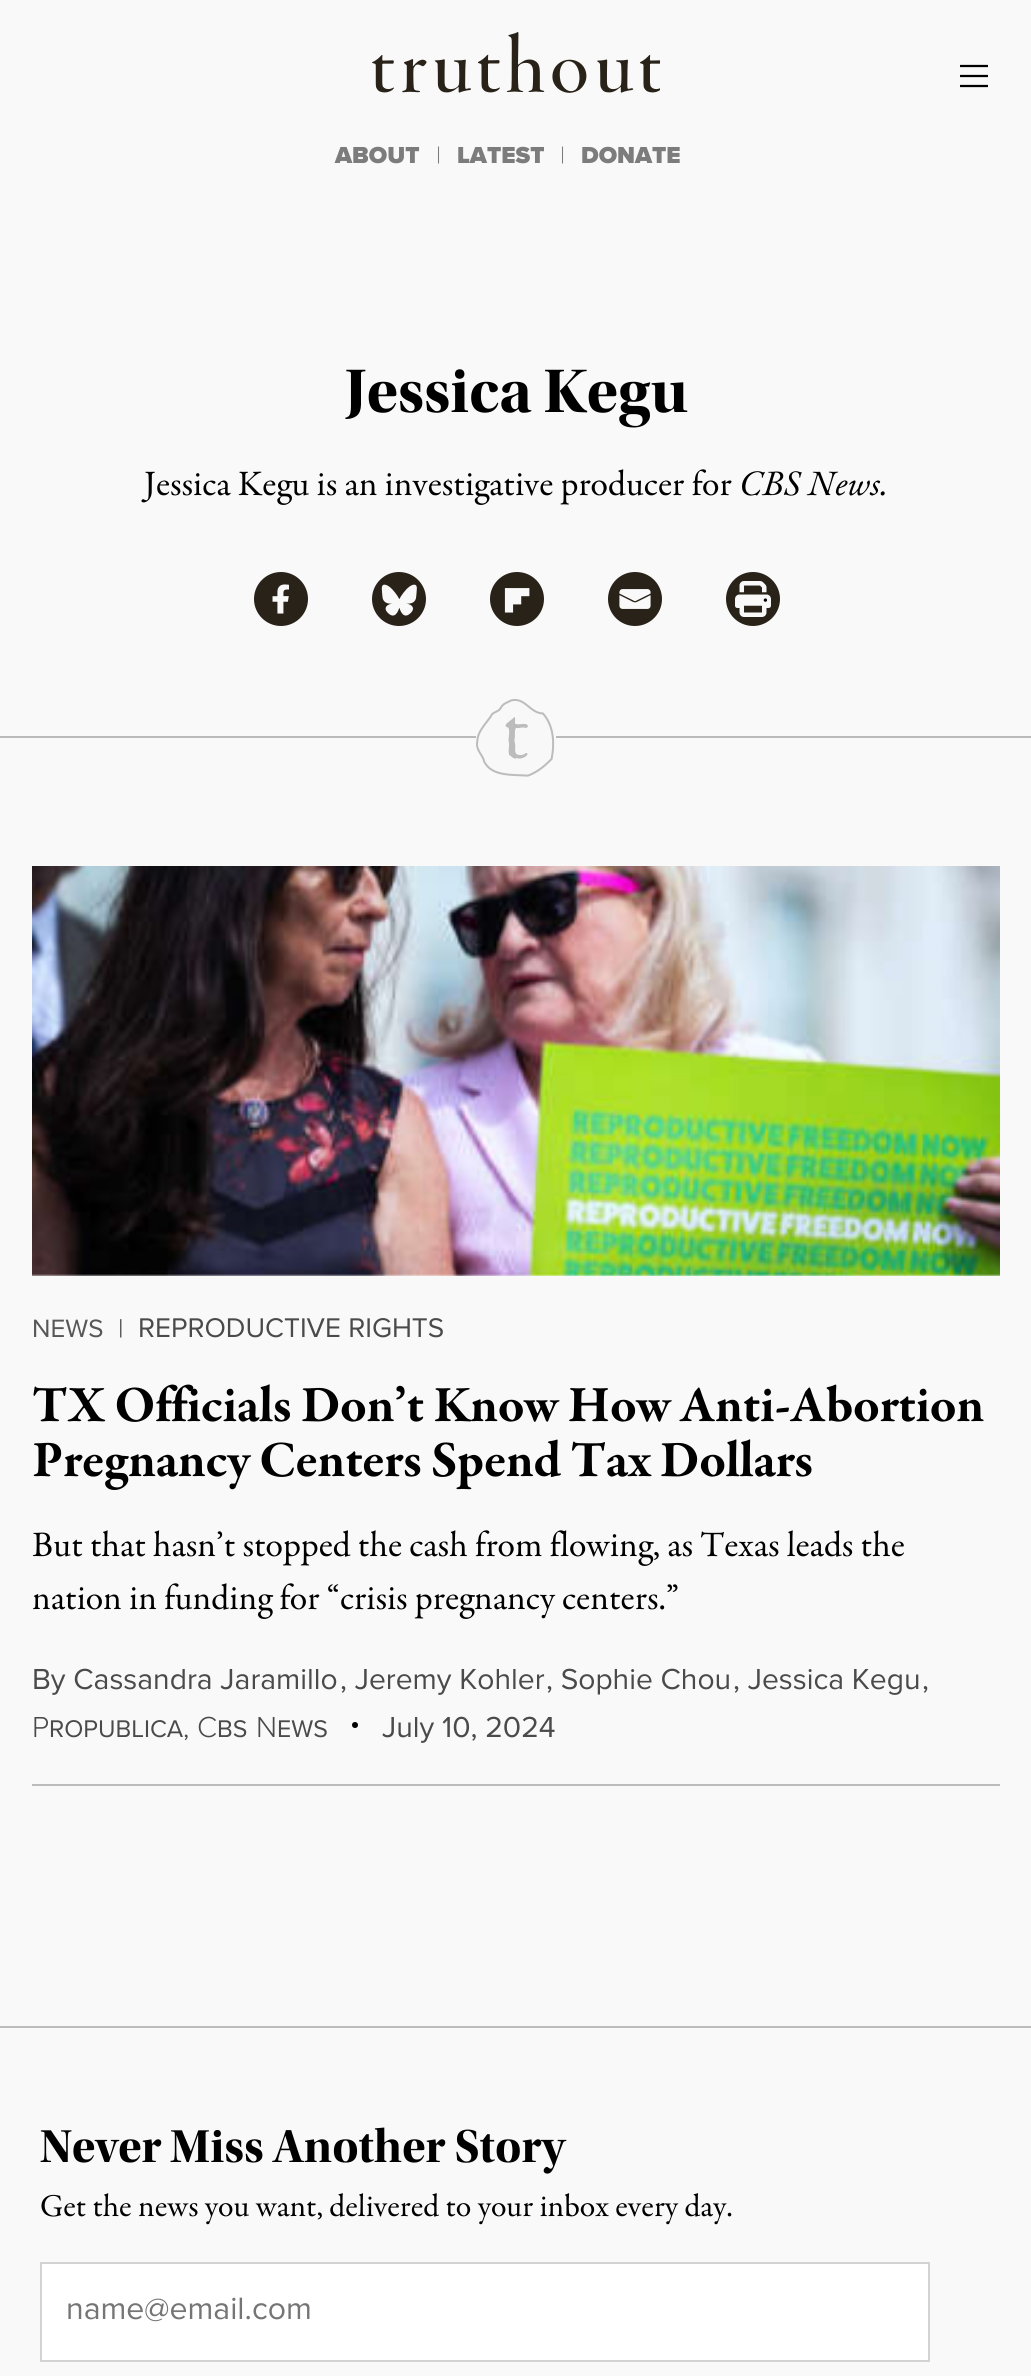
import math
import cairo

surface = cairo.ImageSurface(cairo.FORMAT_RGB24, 1031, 2376)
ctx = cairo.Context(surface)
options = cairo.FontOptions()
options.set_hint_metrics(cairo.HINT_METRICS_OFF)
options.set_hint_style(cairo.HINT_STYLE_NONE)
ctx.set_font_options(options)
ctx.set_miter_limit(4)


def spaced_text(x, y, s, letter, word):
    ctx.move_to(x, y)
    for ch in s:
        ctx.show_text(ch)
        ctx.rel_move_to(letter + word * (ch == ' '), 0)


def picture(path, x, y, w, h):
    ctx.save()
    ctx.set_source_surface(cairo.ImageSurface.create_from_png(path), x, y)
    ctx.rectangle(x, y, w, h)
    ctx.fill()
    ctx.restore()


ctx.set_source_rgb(0.973, 0.973, 0.973)
ctx.paint()
picture("img1.png", 372, 32, 288, 61)
picture("img2.png", 960, 64, 28, 24)
ctx.select_font_face("Proxima Nova Black")
ctx.set_font_size(24)
ctx.set_source_rgb(0.486, 0.486, 0.486)
ctx.move_to(335, 163)
ctx.show_text("ABOUT")
ctx.select_font_face("Proxima Nova Light")
ctx.move_to(436, 163)
ctx.show_text("|")
ctx.select_font_face("Proxima Nova Black")
ctx.move_to(457, 163)
ctx.show_text("LATEST")
ctx.select_font_face("Proxima Nova Light")
ctx.move_to(560, 163)
ctx.show_text("|")
ctx.select_font_face("Proxima Nova Black")
ctx.move_to(581, 163)
ctx.show_text("DONATE")
ctx.set_source_rgb(0.737, 0.737, 0.737)
ctx.rectangle(0, 2026, 1031, 2)
ctx.fill()
ctx.select_font_face("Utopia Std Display", cairo.FONT_SLANT_NORMAL, cairo.FONT_WEIGHT_BOLD)
ctx.set_font_size(64)
ctx.set_source_rgb(0, 0, 0)
ctx.move_to(345, 412)
ctx.show_text("Jessica Kegu")
ctx.select_font_face("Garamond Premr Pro")
ctx.set_font_size(36)
ctx.move_to(144, 495)
ctx.show_text("Jessica Kegu is an investigative producer for")
ctx.select_font_face("Garamond Premr Pro", cairo.FONT_SLANT_ITALIC)
ctx.move_to(739, 495)
ctx.show_text("CBS News.")
picture("img3.png", 254, 572, 54, 54)
picture("img4.png", 372, 572, 54, 54)
picture("img5.png", 490, 572, 54, 54)
picture("img6.png", 608, 572, 54, 54)
picture("img7.png", 726, 572, 54, 54)
ctx.set_source_rgb(0.729, 0.729, 0.729)
ctx.rectangle(0, 736, 476, 2)
ctx.fill()
picture("img8.png", 476, 699, 79, 78)
ctx.rectangle(556, 736, 475, 2)
ctx.fill()
ctx.set_source_rgb(0.737, 0.737, 0.737)
ctx.rectangle(32, 1784, 968, 2)
ctx.fill()
picture("img9.png", 32, 866, 968, 410)
ctx.select_font_face("Proxima Nova")
ctx.set_font_size(26)
ctx.set_source_rgb(0.341, 0.341, 0.341)
ctx.move_to(32, 1337)
ctx.show_text("NEWS")
ctx.move_to(118, 1337)
ctx.show_text("|")
ctx.set_font_size(28)
ctx.set_source_rgb(0.29, 0.29, 0.29)
ctx.move_to(138, 1337)
ctx.show_text("REPRODUCTIVE RIGHTS")
ctx.select_font_face("Garamond Premr Pro", cairo.FONT_SLANT_NORMAL, cairo.FONT_WEIGHT_BOLD)
ctx.set_font_size(52)
ctx.set_source_rgb(0, 0, 0)
spaced_text(32, 1421, "TX Officials Don’t Know How Anti-Abortion", -0.3, 0)
spaced_text(32, 1476, "Pregnancy Centers Spend Tax Dollars", -0.3, 0)
ctx.select_font_face("Garamond Premr Pro")
ctx.set_font_size(36)
ctx.move_to(32, 1556)
ctx.show_text("But that hasn’t stopped the cash from flowing, as Texas leads the")
ctx.move_to(32, 1609)
ctx.show_text("nation in funding for “crisis pregnancy centers.”")
ctx.select_font_face("Proxima Nova")
ctx.set_font_size(30)
ctx.set_source_rgb(0.29, 0.29, 0.29)
ctx.move_to(32, 1689)
ctx.show_text("By Cassandra Jaramillo")
ctx.move_to(340, 1689)
ctx.show_text(", Jeremy Kohler")
ctx.move_to(546, 1689)
ctx.show_text(", Sophie Chou")
ctx.move_to(733, 1689)
ctx.show_text(", Jessica Kegu")
ctx.move_to(922, 1689)
ctx.show_text(",")
ctx.select_font_face("Proxima Nova Light")
ctx.move_to(32, 1737)
ctx.show_text("P")
ctx.select_font_face("Proxima Nova")
ctx.set_font_size(25)
ctx.move_to(49, 1737)
ctx.show_text("ROPUBLICA,")
ctx.select_font_face("Proxima Nova Light")
ctx.set_font_size(30)
ctx.move_to(197, 1737)
ctx.show_text("C")
ctx.select_font_face("Proxima Nova")
ctx.set_font_size(25)
ctx.move_to(217, 1737)
ctx.show_text("BS")
ctx.select_font_face("Proxima Nova Light")
ctx.set_font_size(30)
ctx.move_to(256, 1737)
ctx.show_text("N")
ctx.select_font_face("Proxima Nova")
ctx.set_font_size(25)
ctx.move_to(277, 1737)
ctx.show_text("EWS")
ctx.set_source_rgb(0, 0, 0)
ctx.new_path()
ctx.arc(355, 1725, 3, 0, 2 * math.pi)
ctx.fill()
ctx.set_font_size(30)
ctx.set_source_rgb(0.29, 0.29, 0.29)
ctx.move_to(382, 1737)
ctx.show_text("July 10, 2024")
ctx.select_font_face("Utopia Std Display", cairo.FONT_SLANT_NORMAL, cairo.FONT_WEIGHT_BOLD)
ctx.set_font_size(48)
ctx.set_source_rgb(0, 0, 0)
ctx.move_to(40, 2162)
ctx.show_text("Never Miss Another Story")
ctx.select_font_face("Garamond Premr Pro")
ctx.set_font_size(32)
ctx.move_to(40, 2216)
ctx.show_text("Get the news you want, delivered to your inbox every day.")
ctx.set_source_rgb(1, 1, 1)
ctx.rectangle(41, 2263, 888, 98)
ctx.fill_preserve()
ctx.set_source_rgb(0.827, 0.827, 0.827)
ctx.stroke()
ctx.select_font_face("Proxima Nova")
ctx.set_source_rgb(0.459, 0.459, 0.459)
ctx.move_to(66, 2319)
ctx.show_text("name@email.com")
surface.write_to_png("page.png")
